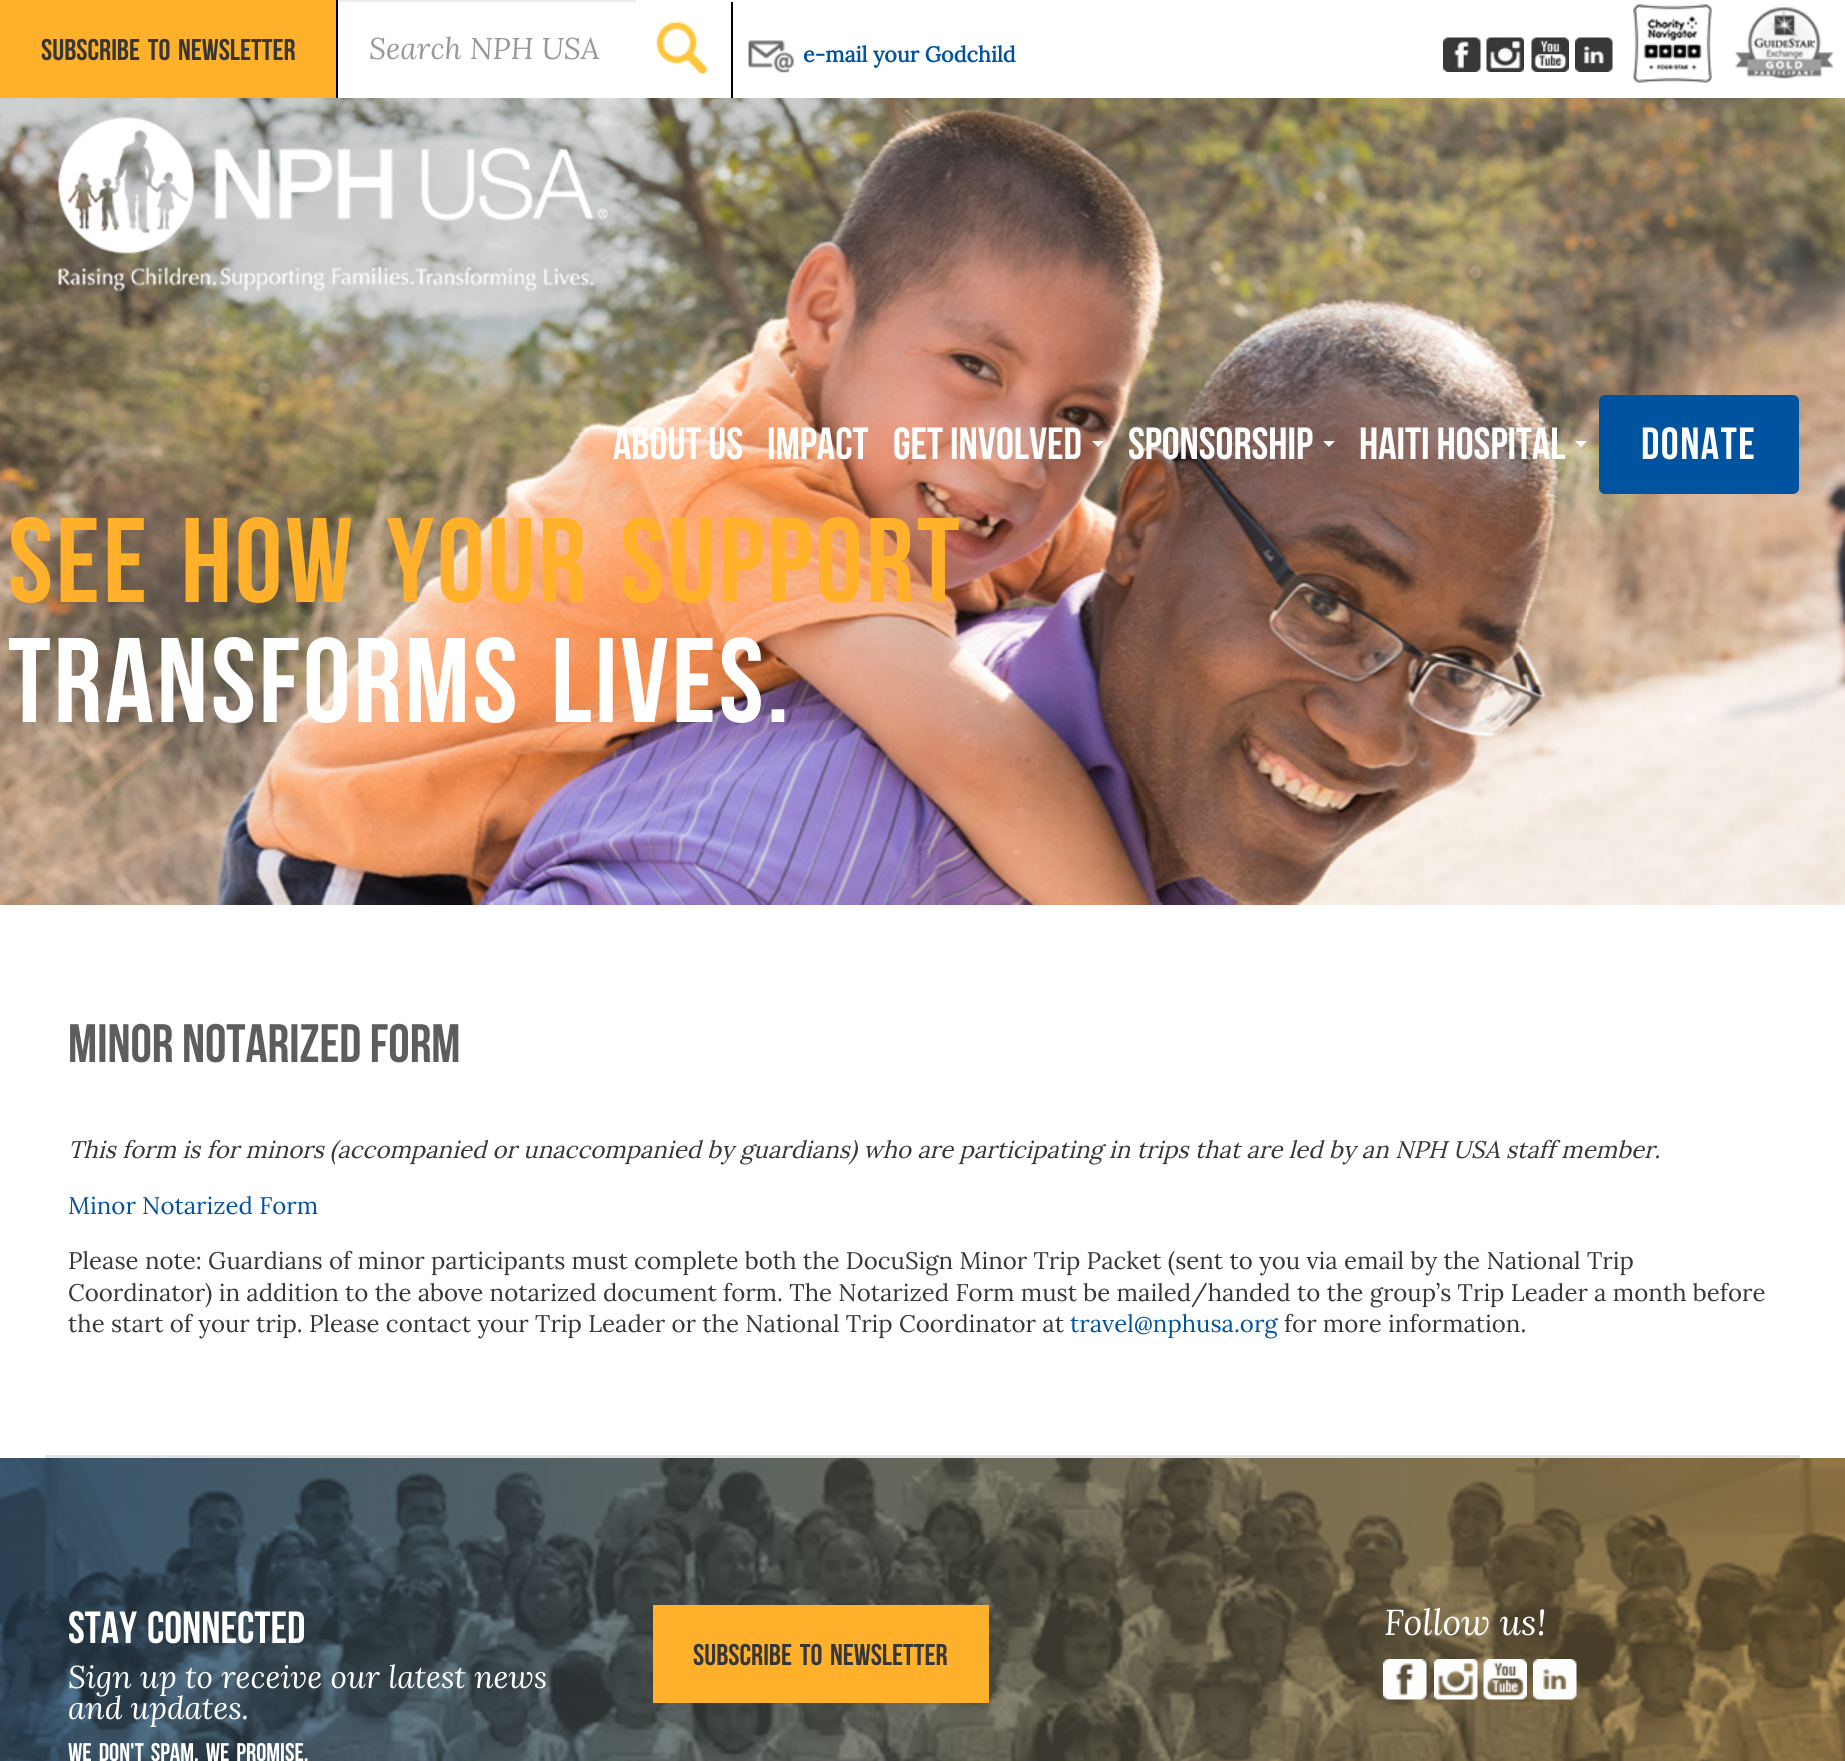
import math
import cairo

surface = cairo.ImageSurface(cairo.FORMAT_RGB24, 1845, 1761)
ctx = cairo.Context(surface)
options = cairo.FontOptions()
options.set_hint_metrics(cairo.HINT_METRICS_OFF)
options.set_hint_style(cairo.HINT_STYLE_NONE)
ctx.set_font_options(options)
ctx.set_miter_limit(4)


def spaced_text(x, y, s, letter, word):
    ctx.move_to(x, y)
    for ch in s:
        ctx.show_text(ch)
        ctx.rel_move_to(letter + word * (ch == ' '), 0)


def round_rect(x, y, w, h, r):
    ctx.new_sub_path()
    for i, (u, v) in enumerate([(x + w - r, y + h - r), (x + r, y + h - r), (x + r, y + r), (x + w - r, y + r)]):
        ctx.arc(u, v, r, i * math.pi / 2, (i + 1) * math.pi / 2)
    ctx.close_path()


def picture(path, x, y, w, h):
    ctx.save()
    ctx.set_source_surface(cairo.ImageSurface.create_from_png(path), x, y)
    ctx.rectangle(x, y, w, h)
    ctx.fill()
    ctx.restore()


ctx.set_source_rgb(1, 1, 1)
ctx.paint()
ctx.set_source_rgb(1, 0.694, 0.173)
ctx.rectangle(0, 0, 336, 98)
ctx.fill()
ctx.select_font_face("Bebas Neue", cairo.FONT_SLANT_NORMAL, cairo.FONT_WEIGHT_BOLD)
ctx.set_font_size(30)
ctx.set_source_rgb(0.216, 0.216, 0.216)
spaced_text(41, 60, "Subscribe to newsletter", 0, 3)
ctx.set_source_rgb(0.925, 0.925, 0.925)
ctx.rectangle(338, 0, 298, 2)
ctx.fill()
ctx.set_source_rgb(0, 0, 0)
ctx.rectangle(336, 0, 2, 98)
ctx.fill()
ctx.select_font_face("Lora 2", cairo.FONT_SLANT_ITALIC)
ctx.set_source_rgb(0.6, 0.6, 0.6)
ctx.move_to(369, 59)
ctx.show_text("Search NPH USA")
picture("img1.png", 656, 22, 51, 52)
ctx.set_source_rgb(0, 0, 0)
ctx.rectangle(731, 2, 2, 96)
ctx.fill()
picture("img2.png", 748, 40, 46, 33)
ctx.select_font_face("Lora", cairo.FONT_SLANT_NORMAL, cairo.FONT_WEIGHT_BOLD)
ctx.set_font_size(21.5)
ctx.set_source_rgb(0, 0.325, 0.624)
ctx.move_to(803, 62)
ctx.show_text("e-mail your Godchild")
picture("img3.png", 1443, 37, 38, 35)
picture("img4.png", 1486, 37, 38, 35)
picture("img5.png", 1531, 37, 38, 35)
picture("img6.png", 1575, 37, 38, 35)
picture("img7.png", 1633, 4, 79, 79)
picture("img8.png", 1735, 7, 99, 72)
picture("img10.png", 0, 98, 1845, 807)
picture("img9.png", 58, 116, 550, 176)
ctx.select_font_face("Bebas Neue", cairo.FONT_SLANT_NORMAL, cairo.FONT_WEIGHT_BOLD)
ctx.set_font_size(45)
ctx.set_source_rgb(1, 1, 1)
ctx.move_to(613, 459)
ctx.show_text("About Us")
ctx.move_to(767, 459)
ctx.show_text("Impact")
ctx.move_to(893, 459)
ctx.show_text("Get Involved")
ctx.new_path()
ctx.move_to(1092, 441)
ctx.line_to(1104, 441)
ctx.line_to(1098, 447)
ctx.close_path()
ctx.fill()
ctx.move_to(1128, 459)
ctx.show_text("Sponsorship")
ctx.new_path()
ctx.move_to(1323, 441)
ctx.line_to(1335, 441)
ctx.line_to(1329, 447)
ctx.close_path()
ctx.fill()
ctx.move_to(1359, 459)
ctx.show_text("Haiti Hospital")
ctx.new_path()
ctx.move_to(1575, 441)
ctx.line_to(1587, 441)
ctx.line_to(1581, 447)
ctx.close_path()
ctx.fill()
ctx.set_source_rgb(0, 0.325, 0.624)
round_rect(1599, 395, 200, 99, 6)
ctx.fill()
ctx.set_source_rgb(1, 1, 1)
spaced_text(1641, 459, "DONATE", 1.5, 0)
ctx.set_font_size(120)
ctx.set_source_rgb(1, 0.694, 0.173)
spaced_text(8, 602, "See how your support", 3, 9)
ctx.set_source_rgb(1, 1, 1)
spaced_text(8, 722, "transforms lives.", 3, 9)
ctx.set_source_rgb(0.886, 0.886, 0.886)
ctx.rectangle(45, 1455, 1755, 3)
ctx.fill()
ctx.set_font_size(54)
ctx.set_source_rgb(0.365, 0.365, 0.365)
ctx.move_to(68, 1062)
ctx.show_text("Minor Notarized Form")
ctx.select_font_face("Lora", cairo.FONT_SLANT_ITALIC)
ctx.set_font_size(24)
ctx.set_source_rgb(0.216, 0.216, 0.216)
ctx.move_to(68, 1158)
ctx.show_text("This form is for minors (accompanied or unaccompanied by guardians) who are participating in trips that are led by an NPH USA staff member.")
ctx.select_font_face("Lora")
ctx.set_source_rgb(0, 0.325, 0.624)
ctx.move_to(68, 1214)
ctx.show_text("Minor Notarized Form")
ctx.set_source_rgb(0.216, 0.216, 0.216)
ctx.move_to(68, 1269)
ctx.show_text("Please note: Guardians of minor participants must complete both the DocuSign Minor Trip Packet (sent to you via email by the National Trip")
ctx.move_to(68, 1301)
ctx.show_text("Coordinator) in addition to the above notarized document form. The Notarized Form must be mailed/handed to the group’s Trip Leader a month before")
ctx.move_to(68, 1332)
ctx.show_text("the start of your trip. Please contact your Trip Leader or the National Trip Coordinator at")
ctx.set_source_rgb(0, 0.325, 0.624)
ctx.move_to(1070, 1332)
ctx.show_text("travel@nphusa.org")
ctx.set_source_rgb(0.216, 0.216, 0.216)
ctx.move_to(1284, 1332)
ctx.show_text("for more information.")
picture("img11.png", 0, 1458, 1845, 303)
ctx.select_font_face("Bebas Neue", cairo.FONT_SLANT_NORMAL, cairo.FONT_WEIGHT_BOLD)
ctx.set_font_size(45)
ctx.set_source_rgb(1, 1, 1)
spaced_text(68, 1643, "Stay Connected", 0, 3)
ctx.select_font_face("Lora 2", cairo.FONT_SLANT_ITALIC)
ctx.set_font_size(31.5)
ctx.move_to(68, 1688)
ctx.show_text("Sign up to receive our latest news")
ctx.move_to(68, 1719)
ctx.show_text("and updates.")
ctx.select_font_face("Bebas Neue", cairo.FONT_SLANT_NORMAL, cairo.FONT_WEIGHT_BOLD)
ctx.set_font_size(25.5)
spaced_text(68, 1761, "we don't spam, we promise.", 0, 3)
ctx.set_source_rgb(1, 0.694, 0.173)
ctx.rectangle(653, 1605, 336, 98)
ctx.fill()
ctx.set_font_size(30)
ctx.set_source_rgb(0.216, 0.216, 0.216)
spaced_text(693, 1665, "Subscribe to newsletter", 0, 3)
ctx.select_font_face("Lora 2", cairo.FONT_SLANT_ITALIC)
ctx.set_font_size(36)
ctx.set_source_rgb(1, 1, 1)
ctx.move_to(1384, 1635)
ctx.show_text("Follow us!")
picture("img12.png", 1383, 1659, 44, 41)
picture("img13.png", 1434, 1659, 44, 41)
picture("img14.png", 1483, 1659, 44, 41)
picture("img15.png", 1533, 1659, 44, 41)
surface.write_to_png("page.png")
